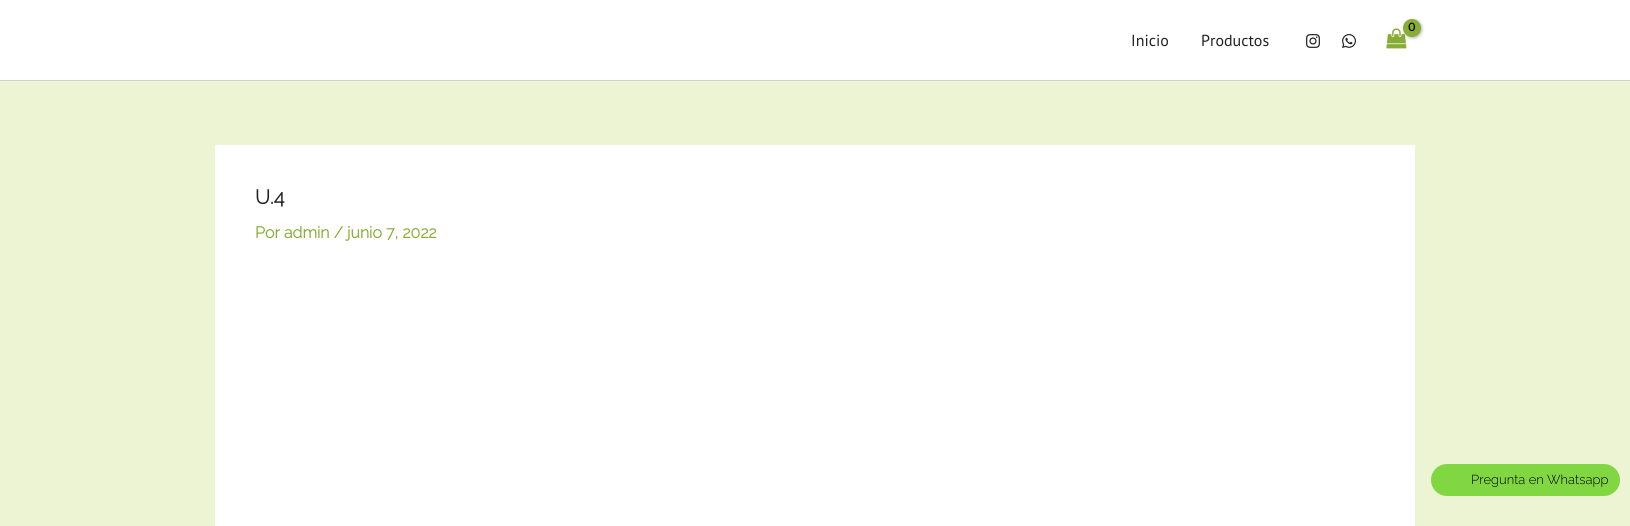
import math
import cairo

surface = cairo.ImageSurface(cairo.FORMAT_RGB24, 1630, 526)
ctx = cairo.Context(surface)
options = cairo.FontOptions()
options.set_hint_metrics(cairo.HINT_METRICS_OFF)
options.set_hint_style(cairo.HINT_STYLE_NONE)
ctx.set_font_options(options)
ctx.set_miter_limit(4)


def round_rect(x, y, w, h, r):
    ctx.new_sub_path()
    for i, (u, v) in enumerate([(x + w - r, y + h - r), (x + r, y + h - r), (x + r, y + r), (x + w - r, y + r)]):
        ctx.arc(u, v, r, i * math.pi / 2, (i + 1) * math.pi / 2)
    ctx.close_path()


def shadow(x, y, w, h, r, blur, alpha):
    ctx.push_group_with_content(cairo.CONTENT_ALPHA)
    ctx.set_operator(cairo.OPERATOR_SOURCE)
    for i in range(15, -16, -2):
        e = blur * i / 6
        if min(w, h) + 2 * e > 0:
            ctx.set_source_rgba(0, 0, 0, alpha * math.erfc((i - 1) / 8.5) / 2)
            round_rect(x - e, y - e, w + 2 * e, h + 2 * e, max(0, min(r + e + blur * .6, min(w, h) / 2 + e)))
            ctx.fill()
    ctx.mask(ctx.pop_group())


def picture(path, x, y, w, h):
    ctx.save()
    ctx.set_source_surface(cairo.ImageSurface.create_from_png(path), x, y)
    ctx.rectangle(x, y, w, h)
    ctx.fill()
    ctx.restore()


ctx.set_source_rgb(0.925, 0.957, 0.827)
ctx.paint()
ctx.set_source_rgb(1, 1, 1)
ctx.rectangle(0, 0, 1630, 80)
ctx.fill()
ctx.set_source_rgb(0.82, 0.82, 0.82)
ctx.rectangle(0, 80, 1630, 1)
ctx.fill()
picture("img1.png", 1386, 28, 21, 21)
ctx.set_source_rgb(0, 0, 0)
shadow(1404, 20, 18, 18, 9, 1.5, 0.3)
ctx.set_source_rgb(0.533, 0.678, 0.208)
ctx.arc(1412, 28, 9, 0, 2 * math.pi)
ctx.fill()
ctx.select_font_face("Instrument Sans", cairo.FONT_SLANT_NORMAL, cairo.FONT_WEIGHT_BOLD)
ctx.set_font_size(11)
ctx.set_source_rgb(0, 0, 0)
ctx.move_to(1408, 31)
ctx.show_text("0")
ctx.select_font_face("PT Sans")
ctx.set_font_size(16)
ctx.set_source_rgb(0.133, 0.133, 0.133)
ctx.move_to(1131, 46)
ctx.show_text("Inicio")
ctx.move_to(1201, 46)
ctx.show_text("Productos")
picture("img2.png", 1306, 34, 14, 14)
picture("img3.png", 1342, 34, 14, 14)
ctx.set_source_rgb(1, 1, 1)
ctx.rectangle(215, 145, 1200, 381)
ctx.fill()
ctx.select_font_face("Raleway", cairo.FONT_SLANT_NORMAL, cairo.FONT_WEIGHT_BOLD)
ctx.set_font_size(20)
ctx.set_source_rgb(0.133, 0.133, 0.133)
ctx.move_to(255, 204)
ctx.show_text("U.4")
ctx.set_font_size(16)
ctx.set_source_rgb(0.533, 0.678, 0.208)
ctx.move_to(255, 238)
ctx.show_text("Por admin / junio 7, 2022")
ctx.set_source_rgb(0.506, 0.843, 0.259)
round_rect(1431, 464, 189, 32, 16)
ctx.fill()
ctx.select_font_face("Raleway Thin")
ctx.set_font_size(13)
ctx.set_source_rgb(0, 0, 0)
ctx.move_to(1471, 484)
ctx.show_text("Pregunta en Whatsapp")
surface.write_to_png("page.png")
